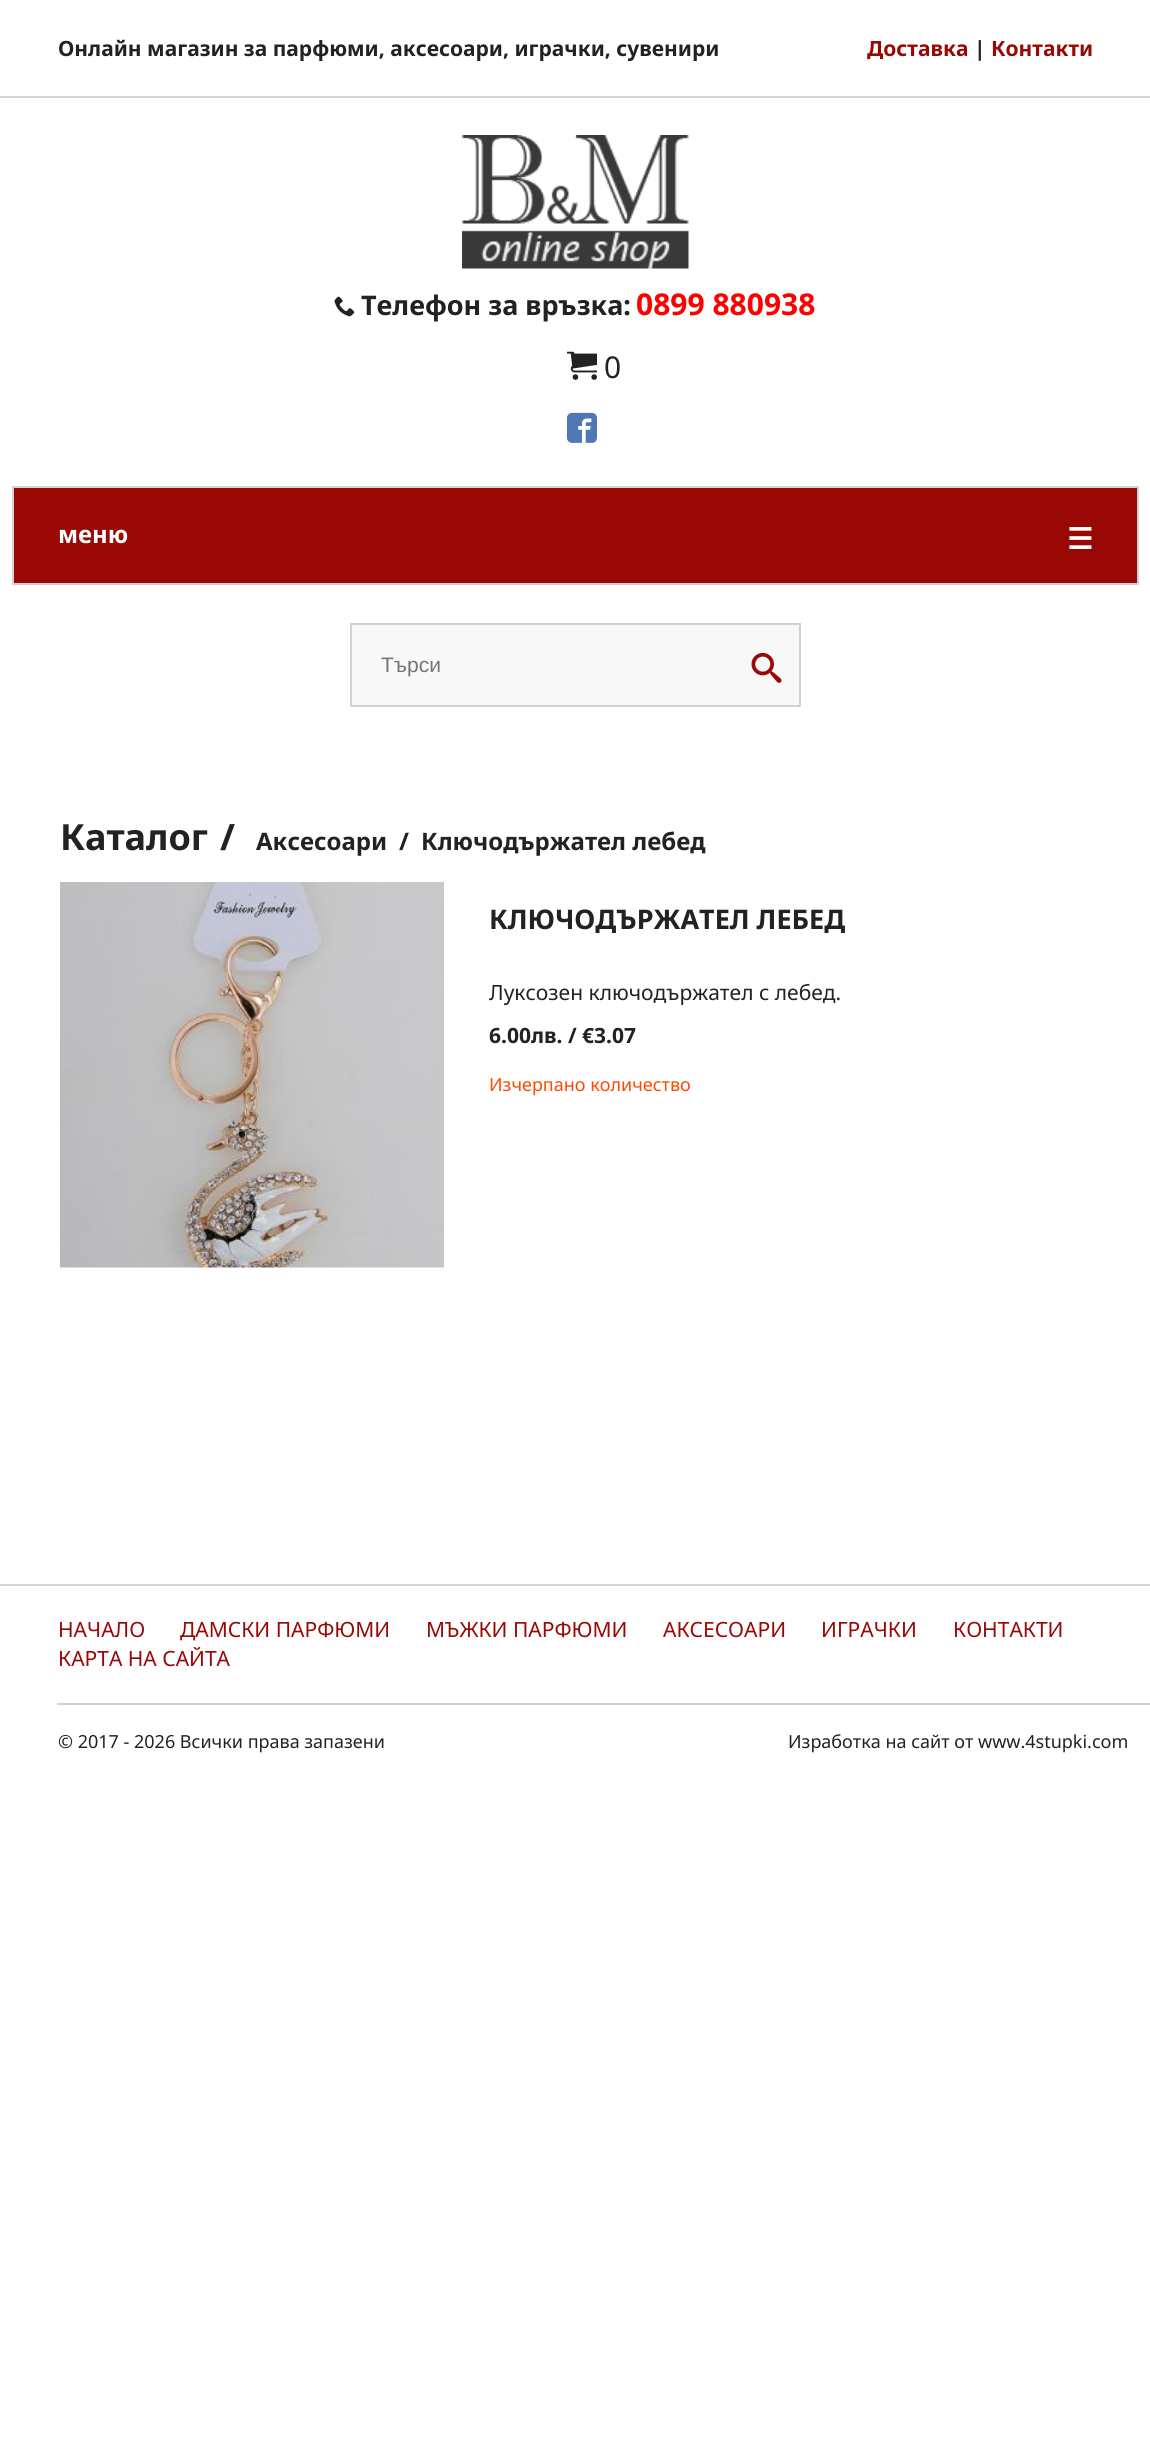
import math
import cairo

surface = cairo.ImageSurface(cairo.FORMAT_RGB24, 1150, 2447)
ctx = cairo.Context(surface)
options = cairo.FontOptions()
options.set_hint_metrics(cairo.HINT_METRICS_OFF)
options.set_hint_style(cairo.HINT_STYLE_NONE)
ctx.set_font_options(options)
ctx.set_miter_limit(4)


def picture(path, x, y, w, h):
    ctx.save()
    ctx.set_source_surface(cairo.ImageSurface.create_from_png(path), x, y)
    ctx.rectangle(x, y, w, h)
    ctx.fill()
    ctx.restore()


ctx.set_source_rgb(1, 1, 1)
ctx.paint()
ctx.set_source_rgb(0.824, 0.824, 0.824)
ctx.rectangle(0, 96, 1150, 2)
ctx.fill()
ctx.select_font_face("Noto Sans", cairo.FONT_SLANT_NORMAL, cairo.FONT_WEIGHT_BOLD)
ctx.set_font_size(21)
ctx.set_source_rgb(0.133, 0.133, 0.133)
ctx.move_to(58, 56)
ctx.show_text("Онлайн магазин за парфюми, аксесоари, играчки, сувенири")
ctx.set_source_rgb(0.604, 0.035, 0.024)
ctx.move_to(867, 56)
ctx.show_text("Доставка")
ctx.set_source_rgb(0.133, 0.133, 0.133)
ctx.move_to(974, 56)
ctx.show_text("|")
ctx.set_source_rgb(0.604, 0.035, 0.024)
ctx.move_to(991, 56)
ctx.show_text("Контакти")
picture("img1.png", 462, 135, 227, 134)
picture("img2.png", 334, 296, 21, 21)
ctx.set_font_size(27)
ctx.set_source_rgb(0.133, 0.133, 0.133)
ctx.move_to(361, 315)
ctx.show_text("Телефон за връзка:")
ctx.set_font_size(30)
ctx.set_source_rgb(1, 0, 0)
ctx.move_to(636, 315)
ctx.show_text("0899 880938")
picture("img3.png", 567, 351, 30, 29)
ctx.select_font_face("Noto Sans")
ctx.set_source_rgb(0.133, 0.133, 0.133)
ctx.move_to(604, 378)
ctx.show_text("0")
picture("img4.png", 567, 412, 30, 31)
ctx.set_source_rgb(0.604, 0.035, 0.024)
ctx.rectangle(13, 487, 1125, 97)
ctx.fill_preserve()
ctx.set_source_rgb(0.824, 0.824, 0.824)
ctx.stroke()
ctx.select_font_face("Noto Sans", cairo.FONT_SLANT_NORMAL, cairo.FONT_WEIGHT_BOLD)
ctx.set_font_size(24)
ctx.set_source_rgb(1, 1, 1)
ctx.move_to(58, 543)
ctx.show_text("меню")
ctx.select_font_face("DejaVu Sans", cairo.FONT_SLANT_NORMAL, cairo.FONT_WEIGHT_BOLD)
ctx.set_font_size(29)
ctx.move_to(1067, 549)
ctx.show_text("☰")
ctx.set_source_rgb(0.969, 0.969, 0.969)
ctx.rectangle(351, 624, 449, 82)
ctx.fill_preserve()
ctx.set_source_rgb(0.824, 0.824, 0.824)
ctx.stroke()
ctx.select_font_face("Liberation Sans")
ctx.set_font_size(21)
ctx.set_source_rgb(0.459, 0.459, 0.459)
ctx.move_to(381, 672)
ctx.show_text("Търси")
picture("img5.png", 751, 652, 31, 31)
ctx.select_font_face("Noto Sans", cairo.FONT_SLANT_NORMAL, cairo.FONT_WEIGHT_BOLD)
ctx.set_font_size(36)
ctx.set_source_rgb(0.133, 0.133, 0.133)
ctx.move_to(60, 850)
ctx.show_text("Каталог")
ctx.move_to(220, 850)
ctx.show_text("/")
ctx.set_font_size(24)
ctx.move_to(256, 850)
ctx.show_text("Аксесоари")
ctx.move_to(399, 850)
ctx.show_text("/")
ctx.move_to(421, 850)
ctx.show_text("Ключодържател лебед")
picture("img6.png", 60, 882, 384, 386)
ctx.set_font_size(27)
ctx.move_to(489, 929)
ctx.show_text("КЛЮЧОДЪРЖАТЕЛ ЛЕБЕД")
ctx.select_font_face("Noto Sans")
ctx.set_font_size(21)
ctx.move_to(489, 1000)
ctx.show_text("Луксозен ключодържател с лебед.")
ctx.select_font_face("Noto Sans", cairo.FONT_SLANT_NORMAL, cairo.FONT_WEIGHT_BOLD)
ctx.move_to(489, 1043)
ctx.show_text("6.00лв. / €3.07")
ctx.select_font_face("Noto Sans")
ctx.set_font_size(18)
ctx.set_source_rgb(1, 0.282, 0)
ctx.move_to(489, 1091)
ctx.show_text("Изчерпано количество")
ctx.set_source_rgb(0.824, 0.824, 0.824)
ctx.rectangle(0, 1584, 1150, 2)
ctx.fill()
ctx.set_font_size(21)
ctx.set_source_rgb(0.604, 0.035, 0.024)
ctx.move_to(58, 1637)
ctx.show_text("НАЧАЛО")
ctx.move_to(180, 1637)
ctx.show_text("ДАМСКИ ПАРФЮМИ")
ctx.move_to(426, 1637)
ctx.show_text("МЪЖКИ ПАРФЮМИ")
ctx.move_to(663, 1637)
ctx.show_text("АКСЕСОАРИ")
ctx.move_to(821, 1637)
ctx.show_text("ИГРАЧКИ")
ctx.move_to(953, 1637)
ctx.show_text("КОНТАКТИ")
ctx.move_to(58, 1666)
ctx.show_text("КАРТА НА САЙТА")
ctx.set_source_rgb(0.824, 0.824, 0.824)
ctx.rectangle(57, 1703, 1093, 2)
ctx.fill()
ctx.set_font_size(18)
ctx.set_source_rgb(0.133, 0.133, 0.133)
ctx.move_to(58, 1748)
ctx.show_text("© 2017 - 2026 Всички права запазени")
ctx.move_to(788, 1748)
ctx.show_text("Изработка на сайт от www.4stupki.com")
surface.write_to_png("page.png")
